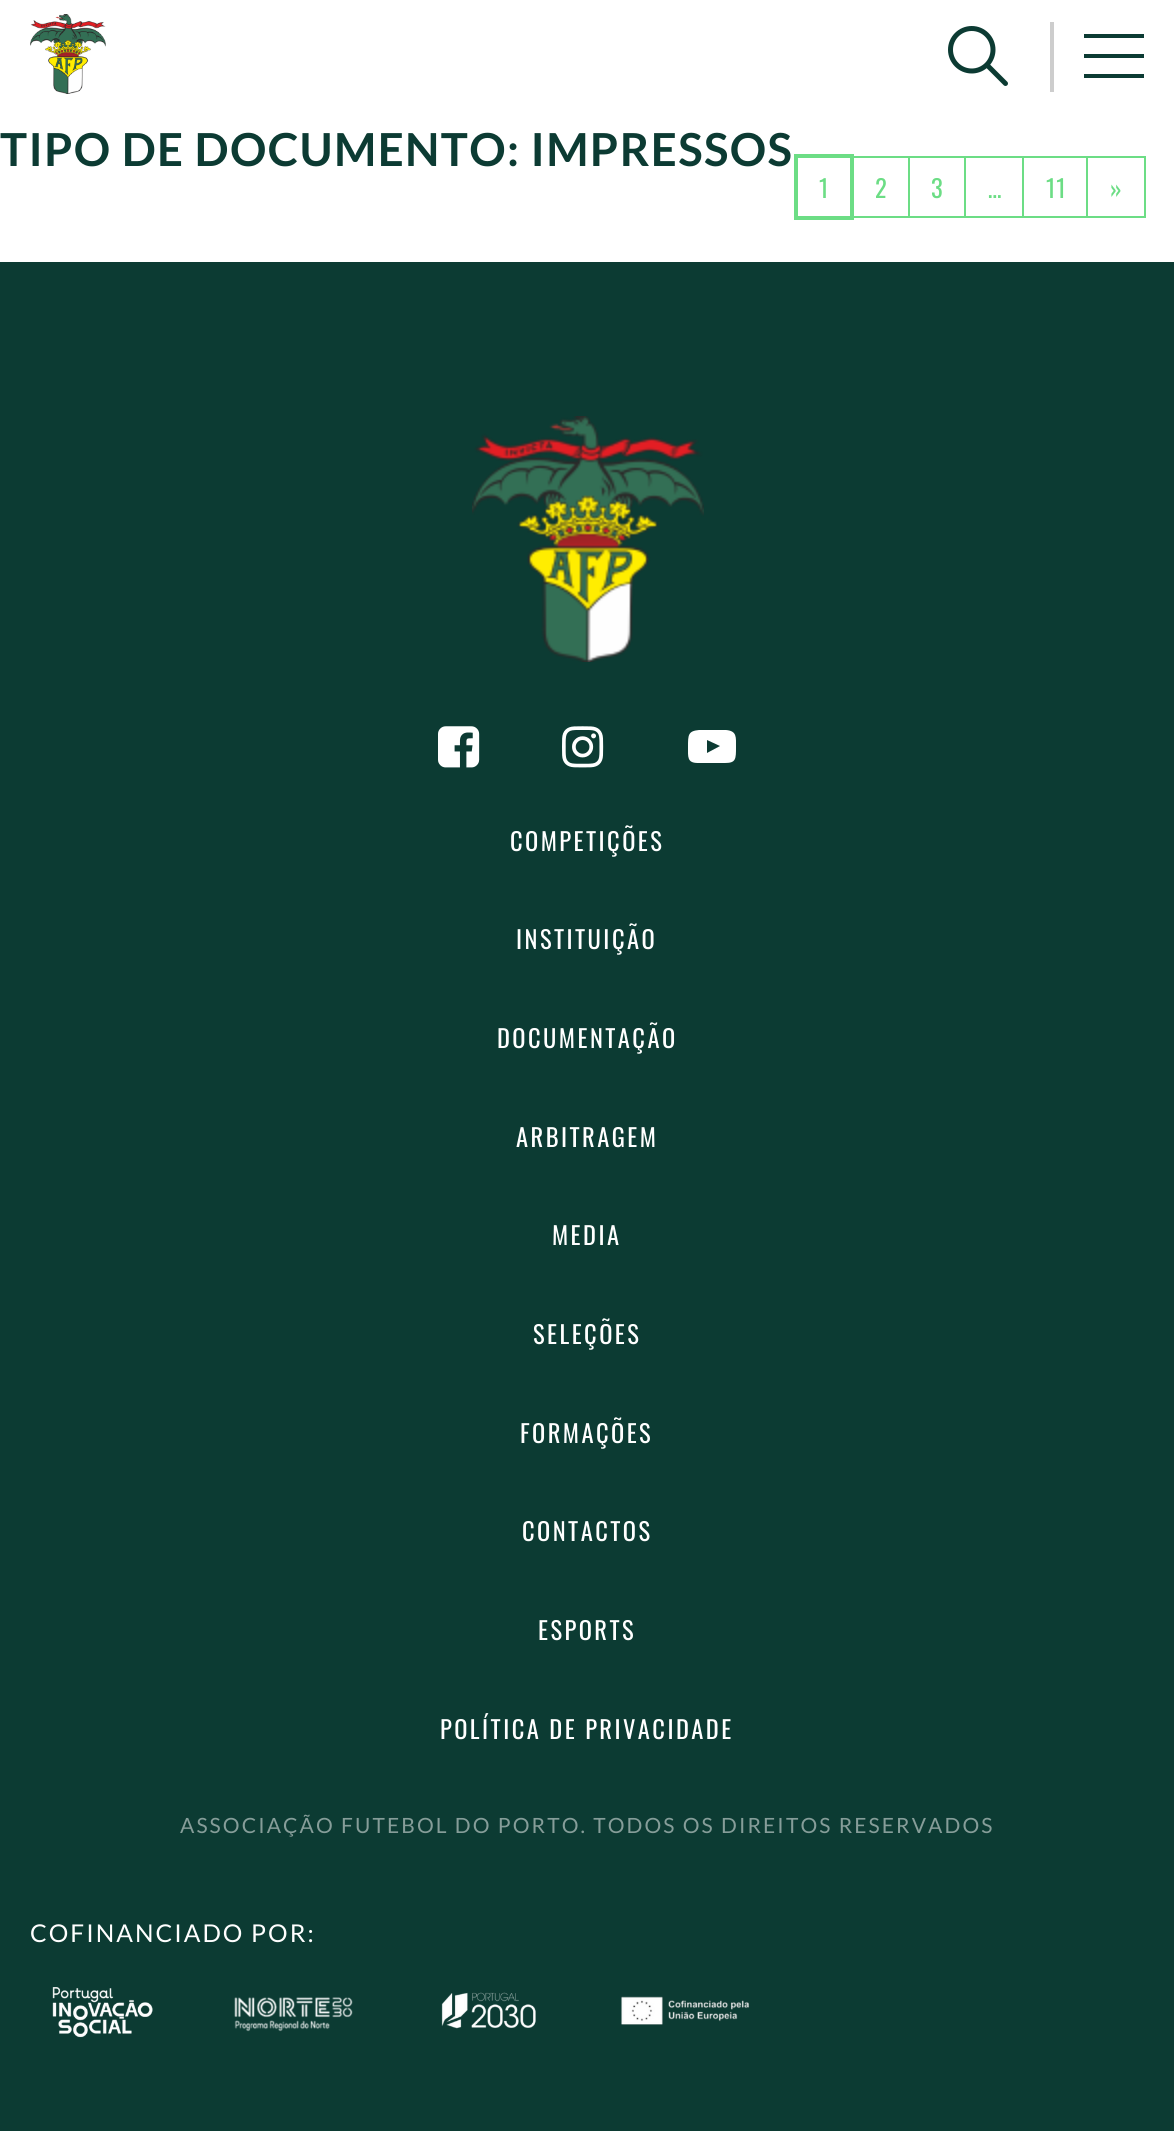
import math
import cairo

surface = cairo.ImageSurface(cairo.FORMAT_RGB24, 1174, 2131)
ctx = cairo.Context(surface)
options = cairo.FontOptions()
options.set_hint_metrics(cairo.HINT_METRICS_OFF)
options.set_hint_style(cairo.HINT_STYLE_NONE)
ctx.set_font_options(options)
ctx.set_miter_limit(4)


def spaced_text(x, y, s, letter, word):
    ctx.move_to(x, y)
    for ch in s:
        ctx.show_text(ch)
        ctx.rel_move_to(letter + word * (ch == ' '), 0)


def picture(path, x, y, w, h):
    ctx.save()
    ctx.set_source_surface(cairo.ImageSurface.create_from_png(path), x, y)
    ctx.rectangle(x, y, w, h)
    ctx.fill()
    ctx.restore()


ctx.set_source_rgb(1, 1, 1)
ctx.paint()
picture("img1.png", 30, 14, 76, 80)
picture("img2.png", 948, 26, 60, 60)
ctx.set_source_rgb(0.804, 0.804, 0.804)
ctx.rectangle(1050, 22, 4, 70)
ctx.fill()
ctx.set_source_rgb(0.047, 0.231, 0.2)
ctx.rectangle(1084, 34, 60, 4)
ctx.fill()
ctx.rectangle(1084, 54, 60, 4)
ctx.fill()
ctx.rectangle(1084, 74, 60, 4)
ctx.fill()
ctx.select_font_face("Lato", cairo.FONT_SLANT_NORMAL, cairo.FONT_WEIGHT_BOLD)
ctx.set_font_size(45.5)
spaced_text(0, 166, "TIPO DE DOCUMENTO: IMPRESSOS", 1.35, 0)
ctx.rectangle(853, 157, 56, 60)
ctx.set_source_rgb(0.424, 0.867, 0.522)
ctx.stroke()
ctx.rectangle(796, 156, 56, 62)
ctx.set_line_width(4)
ctx.stroke()
ctx.select_font_face("Oswald")
ctx.set_font_size(24.5)
spaced_text(819, 198, "1", 1, 0)
spaced_text(875, 198, "2", 1, 0)
ctx.rectangle(909, 157, 56, 60)
ctx.set_line_width(2)
ctx.stroke()
spaced_text(931, 198, "3", 1, 0)
ctx.rectangle(965, 157, 58, 60)
ctx.stroke()
spaced_text(988, 198, "…", 1, 0)
ctx.rectangle(1023, 157, 64, 60)
ctx.stroke()
spaced_text(1046, 198, "11", 1, 0)
ctx.rectangle(1087, 157, 58, 60)
ctx.stroke()
spaced_text(1110, 198, "»", 1, 0)
ctx.set_source_rgb(0.047, 0.231, 0.2)
ctx.rectangle(0, 262, 1174, 1869)
ctx.fill()
picture("img3.png", 472, 416, 232, 246)
picture("img4.png", 438, 726, 42, 42)
picture("img5.png", 562, 726, 42, 42)
ctx.set_source_rgb(1, 1, 1)
ctx.new_path()
ctx.move_to(707, 753)
ctx.line_to(720, 746)
ctx.line_to(707, 740)
ctx.close_path()
ctx.move_to(712, 730)
ctx.line_to(726, 730)
ctx.curve_to(737, 731, 736, 737, 736, 747)
ctx.curve_to(736, 759, 736, 763, 725, 763)
ctx.line_to(698, 763)
ctx.curve_to(687, 763, 688, 757, 688, 747)
ctx.curve_to(688, 735, 688, 731, 699, 730)
ctx.close_path()
ctx.fill()
spaced_text(510, 851, "COMPETIÇÕES", 2.45, 0)
spaced_text(516, 949, "INSTITUIÇÃO", 2.45, 0)
spaced_text(497, 1048, "DOCUMENTAÇÃO", 2.45, 0)
spaced_text(516, 1147, "ARBITRAGEM", 2.45, 0)
spaced_text(552, 1245, "MEDIA", 2.45, 0)
spaced_text(533, 1344, "SELEÇÕES", 2.45, 0)
spaced_text(520, 1443, "FORMAÇÕES", 2.45, 0)
spaced_text(522, 1541, "CONTACTOS", 2.45, 0)
spaced_text(538, 1640, "ESPORTS", 2.45, 0)
spaced_text(440, 1739, "POLÍTICA DE PRIVACIDADE", 2.45, 0)
ctx.select_font_face("Lato")
ctx.set_font_size(21)
ctx.set_source_rgb(0.525, 0.616, 0.6)
spaced_text(180, 1833, "ASSOCIAÇÃO FUTEBOL DO PORTO. TODOS OS DIREITOS RESERVADOS", 2.1, 0)
ctx.set_font_size(24.5)
ctx.set_source_rgb(1, 1, 1)
spaced_text(30, 1942, "COFINANCIADO POR:", 2, 0)
picture("img6.png", 52, 1987, 101, 51)
picture("img7.png", 234, 1997, 119, 35)
picture("img8.png", 441, 1992, 95, 37)
picture("img9.png", 621, 1996, 129, 29)
surface.write_to_png("page.png")
